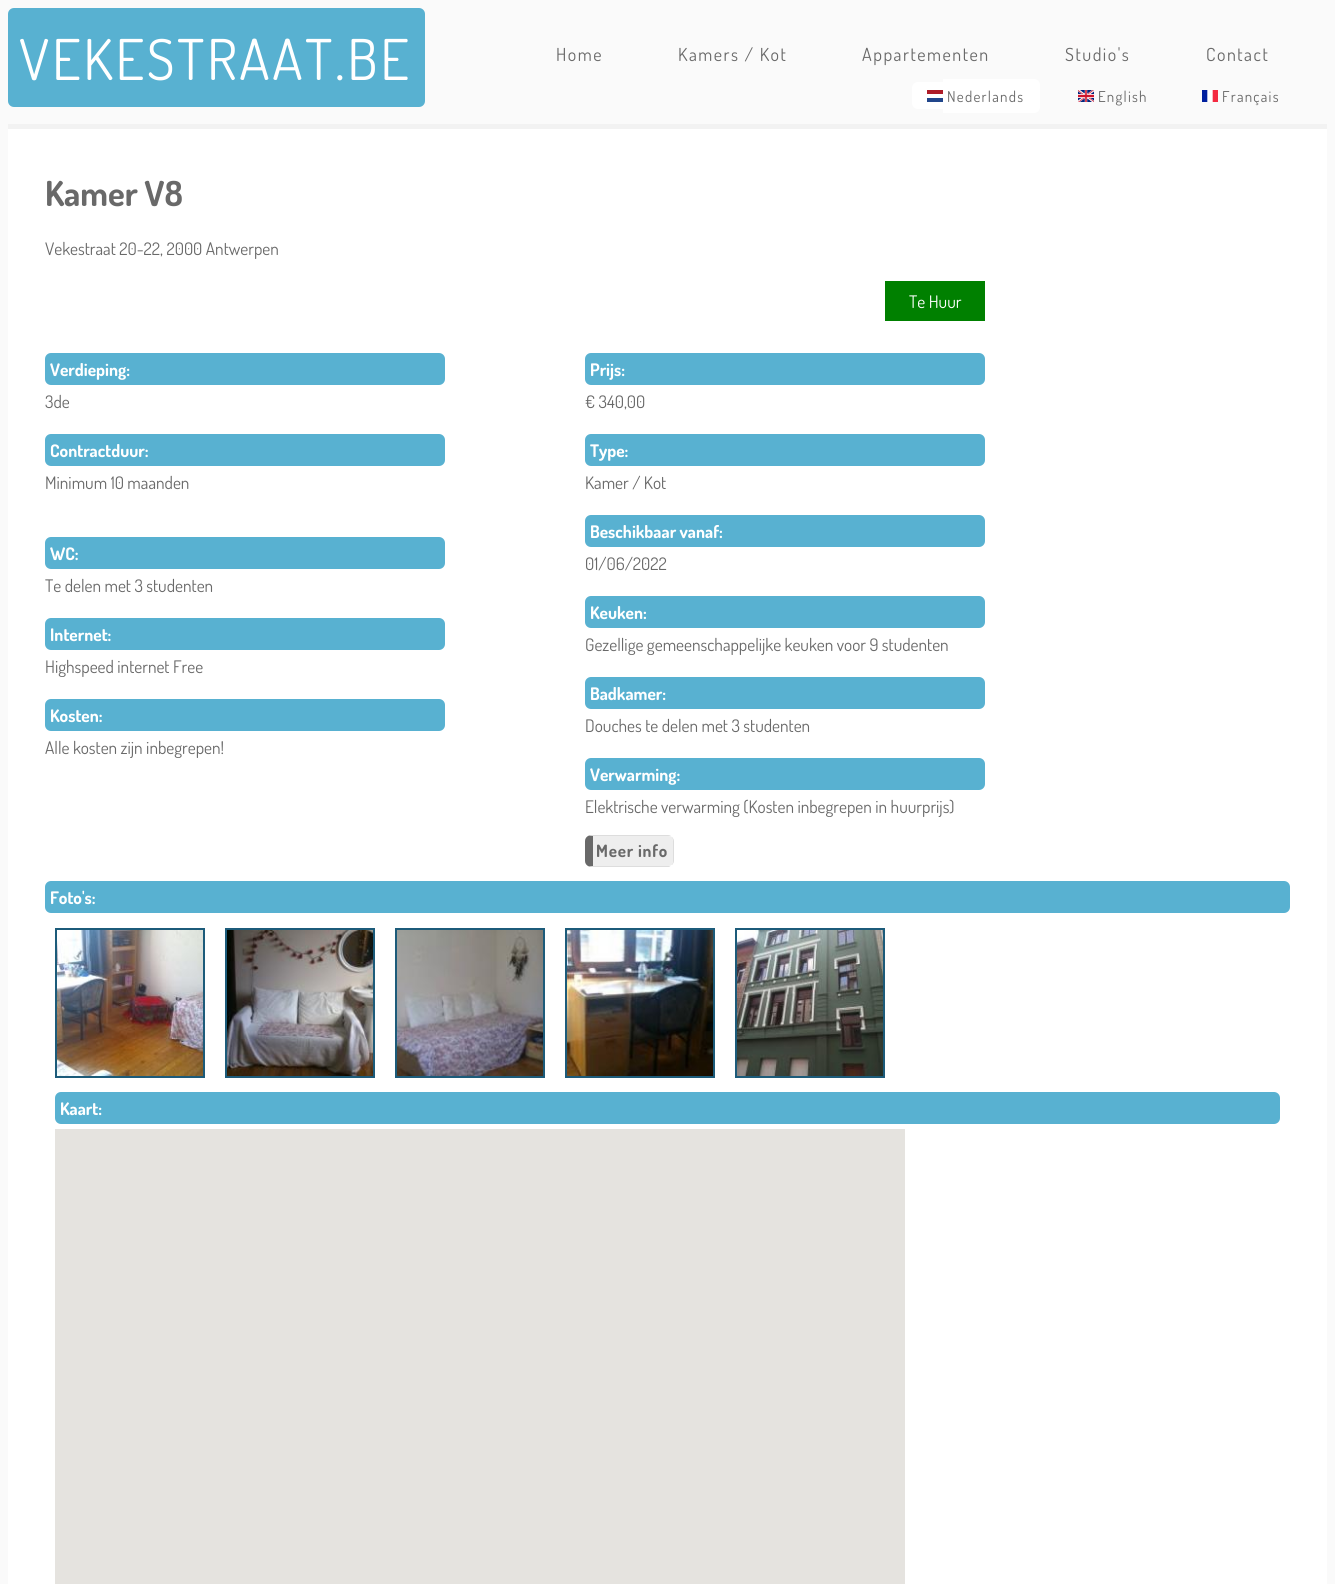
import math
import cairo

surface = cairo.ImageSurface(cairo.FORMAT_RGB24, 1335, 1584)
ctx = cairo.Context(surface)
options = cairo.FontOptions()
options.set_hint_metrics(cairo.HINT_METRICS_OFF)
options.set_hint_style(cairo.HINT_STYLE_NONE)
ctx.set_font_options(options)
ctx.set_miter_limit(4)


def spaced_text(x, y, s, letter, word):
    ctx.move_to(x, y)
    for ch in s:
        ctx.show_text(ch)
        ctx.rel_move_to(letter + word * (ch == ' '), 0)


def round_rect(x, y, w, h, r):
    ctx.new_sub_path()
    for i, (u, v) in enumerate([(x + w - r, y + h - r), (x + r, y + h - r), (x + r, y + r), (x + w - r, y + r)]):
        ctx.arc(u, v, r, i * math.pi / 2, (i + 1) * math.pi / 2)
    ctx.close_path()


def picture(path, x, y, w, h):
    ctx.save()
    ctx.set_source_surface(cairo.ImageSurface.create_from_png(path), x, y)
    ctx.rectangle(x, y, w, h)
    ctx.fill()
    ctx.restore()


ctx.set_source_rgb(0.98, 0.98, 0.98)
ctx.paint()
ctx.set_source_rgb(0.949, 0.949, 0.949)
ctx.rectangle(8, 124, 1319, 5)
ctx.fill()
ctx.set_source_rgb(0.345, 0.694, 0.82)
round_rect(8, 8, 417, 99, 6)
ctx.fill()
ctx.select_font_face("Dosis")
ctx.set_font_size(56.25)
ctx.set_source_rgb(1, 1, 1)
spaced_text(19, 80, "VEKESTRAAT.BE", 2.75, 0)
ctx.new_path()
ctx.move_to(918, 82)
ctx.line_to(943, 82)
ctx.line_to(943, 109)
ctx.line_to(918, 109)
ctx.curve_to(914.5, 109, 912, 106.5, 912, 103)
ctx.line_to(912, 88)
ctx.curve_to(912, 84.5, 914.5, 82, 918, 82)
ctx.close_path()
ctx.fill()
picture("img1.png", 927, 90, 16, 12)
ctx.new_path()
ctx.move_to(943, 79)
ctx.line_to(1034, 79)
ctx.curve_to(1037.5, 79, 1040, 81.5, 1040, 85)
ctx.line_to(1040, 107)
ctx.curve_to(1040, 110.5, 1037.5, 113, 1034, 113)
ctx.line_to(943, 113)
ctx.close_path()
ctx.fill()
ctx.set_font_size(15)
ctx.set_source_rgb(0.412, 0.412, 0.412)
spaced_text(947, 102, "Nederlands", 1.25, 0)
picture("img2.png", 1078, 90, 16, 12)
spaced_text(1098, 102, "English", 1.25, 0)
picture("img3.png", 1202, 90, 16, 12)
spaced_text(1222, 102, "Français", 1.25, 0)
ctx.set_font_size(18)
spaced_text(556, 61, "Home", 1.5, 0)
spaced_text(678, 61, "Kamers / Kot", 1.5, 0)
spaced_text(862, 61, "Appartementen", 1.5, 0)
spaced_text(1065, 61, "Studio's", 1.5, 0)
spaced_text(1206, 61, "Contact", 1.5, 0)
ctx.set_source_rgb(1, 1, 1)
ctx.rectangle(8, 129, 1319, 1455)
ctx.fill()
ctx.select_font_face("Dosis", cairo.FONT_SLANT_NORMAL, cairo.FONT_WEIGHT_BOLD)
ctx.set_font_size(34.5)
ctx.set_source_rgb(0.412, 0.412, 0.412)
ctx.move_to(45, 206)
ctx.show_text("Kamer V8")
ctx.select_font_face("Dosis")
ctx.set_font_size(17.3)
ctx.move_to(45, 255)
ctx.show_text("Vekestraat 20-22, 2000 Antwerpen")
ctx.set_source_rgb(0, 0.502, 0)
ctx.rectangle(885, 281, 100, 40)
ctx.fill()
ctx.set_source_rgb(1, 1, 1)
ctx.move_to(909, 308)
ctx.show_text("Te Huur")
ctx.set_source_rgb(0.345, 0.694, 0.82)
round_rect(45, 353, 400, 32, 6)
ctx.fill()
ctx.select_font_face("Dosis", cairo.FONT_SLANT_NORMAL, cairo.FONT_WEIGHT_BOLD)
ctx.set_source_rgb(1, 1, 1)
ctx.move_to(50, 376)
ctx.show_text("Verdieping:")
ctx.select_font_face("Dosis")
ctx.set_source_rgb(0.412, 0.412, 0.412)
ctx.move_to(45, 408)
ctx.show_text("3de")
ctx.set_source_rgb(0.345, 0.694, 0.82)
round_rect(45, 434, 400, 32, 6)
ctx.fill()
ctx.select_font_face("Dosis", cairo.FONT_SLANT_NORMAL, cairo.FONT_WEIGHT_BOLD)
ctx.set_source_rgb(1, 1, 1)
ctx.move_to(50, 457)
ctx.show_text("Contractduur:")
ctx.select_font_face("Dosis")
ctx.set_source_rgb(0.412, 0.412, 0.412)
ctx.move_to(45, 489)
ctx.show_text("Minimum 10 maanden")
ctx.set_source_rgb(0.345, 0.694, 0.82)
round_rect(45, 537, 400, 32, 6)
ctx.fill()
ctx.select_font_face("Dosis", cairo.FONT_SLANT_NORMAL, cairo.FONT_WEIGHT_BOLD)
ctx.set_source_rgb(1, 1, 1)
ctx.move_to(50, 560)
ctx.show_text("WC:")
ctx.select_font_face("Dosis")
ctx.set_source_rgb(0.412, 0.412, 0.412)
ctx.move_to(45, 592)
ctx.show_text("Te delen met 3 studenten")
ctx.set_source_rgb(0.345, 0.694, 0.82)
round_rect(45, 618, 400, 32, 6)
ctx.fill()
ctx.select_font_face("Dosis", cairo.FONT_SLANT_NORMAL, cairo.FONT_WEIGHT_BOLD)
ctx.set_source_rgb(1, 1, 1)
ctx.move_to(50, 641)
ctx.show_text("Internet:")
ctx.select_font_face("Dosis")
ctx.set_source_rgb(0.412, 0.412, 0.412)
ctx.move_to(45, 673)
ctx.show_text("Highspeed internet Free")
ctx.set_source_rgb(0.345, 0.694, 0.82)
round_rect(45, 699, 400, 32, 6)
ctx.fill()
ctx.select_font_face("Dosis", cairo.FONT_SLANT_NORMAL, cairo.FONT_WEIGHT_BOLD)
ctx.set_source_rgb(1, 1, 1)
ctx.move_to(50, 722)
ctx.show_text("Kosten:")
ctx.select_font_face("Dosis")
ctx.set_source_rgb(0.412, 0.412, 0.412)
ctx.move_to(45, 754)
ctx.show_text("Alle kosten zijn inbegrepen!")
ctx.set_source_rgb(0.345, 0.694, 0.82)
round_rect(585, 353, 400, 32, 6)
ctx.fill()
ctx.select_font_face("Dosis", cairo.FONT_SLANT_NORMAL, cairo.FONT_WEIGHT_BOLD)
ctx.set_source_rgb(1, 1, 1)
ctx.move_to(590, 376)
ctx.show_text("Prijs:")
ctx.select_font_face("Dosis")
ctx.set_source_rgb(0.412, 0.412, 0.412)
ctx.move_to(585, 408)
ctx.show_text("€ 340,00")
ctx.set_source_rgb(0.345, 0.694, 0.82)
round_rect(585, 434, 400, 32, 6)
ctx.fill()
ctx.select_font_face("Dosis", cairo.FONT_SLANT_NORMAL, cairo.FONT_WEIGHT_BOLD)
ctx.set_source_rgb(1, 1, 1)
ctx.move_to(590, 457)
ctx.show_text("Type:")
ctx.select_font_face("Dosis")
ctx.set_source_rgb(0.412, 0.412, 0.412)
ctx.move_to(585, 489)
ctx.show_text("Kamer / Kot")
ctx.set_source_rgb(0.345, 0.694, 0.82)
round_rect(585, 515, 400, 32, 6)
ctx.fill()
ctx.select_font_face("Dosis", cairo.FONT_SLANT_NORMAL, cairo.FONT_WEIGHT_BOLD)
ctx.set_source_rgb(1, 1, 1)
ctx.move_to(590, 538)
ctx.show_text("Beschikbaar vanaf:")
ctx.select_font_face("Dosis")
ctx.set_source_rgb(0.412, 0.412, 0.412)
ctx.move_to(585, 570)
ctx.show_text("01/06/2022")
ctx.set_source_rgb(0.345, 0.694, 0.82)
round_rect(585, 596, 400, 32, 6)
ctx.fill()
ctx.select_font_face("Dosis", cairo.FONT_SLANT_NORMAL, cairo.FONT_WEIGHT_BOLD)
ctx.set_source_rgb(1, 1, 1)
ctx.move_to(590, 619)
ctx.show_text("Keuken:")
ctx.select_font_face("Dosis")
ctx.set_source_rgb(0.412, 0.412, 0.412)
ctx.move_to(585, 651)
ctx.show_text("Gezellige gemeenschappelijke keuken voor 9 studenten")
ctx.set_source_rgb(0.345, 0.694, 0.82)
round_rect(585, 677, 400, 32, 6)
ctx.fill()
ctx.select_font_face("Dosis", cairo.FONT_SLANT_NORMAL, cairo.FONT_WEIGHT_BOLD)
ctx.set_source_rgb(1, 1, 1)
ctx.move_to(590, 700)
ctx.show_text("Badkamer:")
ctx.select_font_face("Dosis")
ctx.set_source_rgb(0.412, 0.412, 0.412)
ctx.move_to(585, 732)
ctx.show_text("Douches te delen met 3 studenten")
ctx.set_source_rgb(0.345, 0.694, 0.82)
round_rect(585, 758, 400, 32, 6)
ctx.fill()
ctx.select_font_face("Dosis", cairo.FONT_SLANT_NORMAL, cairo.FONT_WEIGHT_BOLD)
ctx.set_source_rgb(1, 1, 1)
ctx.move_to(590, 781)
ctx.show_text("Verwarming:")
ctx.select_font_face("Dosis")
ctx.set_source_rgb(0.412, 0.412, 0.412)
ctx.move_to(585, 813)
ctx.show_text("Elektrische verwarming (Kosten inbegrepen in huurprijs)")
ctx.set_source_rgb(0.933, 0.933, 0.933)
ctx.new_path()
ctx.move_to(593, 836)
ctx.line_to(668, 836)
ctx.curve_to(671, 836, 673, 838, 673, 841)
ctx.line_to(673, 861)
ctx.curve_to(673, 864, 671, 866, 668, 866)
ctx.line_to(593, 866)
ctx.close_path()
ctx.fill()
ctx.select_font_face("Dosis", cairo.FONT_SLANT_NORMAL, cairo.FONT_WEIGHT_BOLD)
ctx.set_font_size(17)
ctx.set_source_rgb(0.412, 0.412, 0.412)
spaced_text(596, 857, "Meer info", 0.75, 0)
ctx.set_source_rgb(0.867, 0.867, 0.867)
ctx.new_path()
ctx.move_to(591, 835)
ctx.line_to(589, 835)
ctx.line_to(593, 836)
ctx.line_to(668, 836)
ctx.curve_to(670, 836, 671, 836, 672, 837)
ctx.curve_to(671, 836, 670, 835, 668, 835)
ctx.close_path()
ctx.fill()
ctx.new_path()
ctx.move_to(674, 861)
ctx.line_to(674, 841)
ctx.curve_to(674, 839.5, 673, 838, 672, 837)
ctx.line_to(671.5, 837.5)
ctx.curve_to(672.5, 838, 673, 839.5, 673, 841)
ctx.line_to(673, 861)
ctx.curve_to(673, 862.5, 672.5, 864, 671.5, 864.5)
ctx.line_to(672, 865)
ctx.curve_to(673, 864, 674, 862.5, 674, 861)
ctx.close_path()
ctx.fill()
ctx.new_path()
ctx.move_to(591, 867)
ctx.line_to(669, 867)
ctx.line_to(672, 865)
ctx.curve_to(671, 866, 670, 866, 668, 866)
ctx.line_to(593, 866)
ctx.line_to(589, 867)
ctx.close_path()
ctx.fill()
ctx.set_source_rgb(0.412, 0.412, 0.412)
ctx.new_path()
ctx.move_to(593, 836)
ctx.line_to(589, 835.5)
ctx.curve_to(586.5, 836.5, 585, 838.5, 585, 841)
ctx.line_to(585, 861)
ctx.curve_to(585, 863.5, 586.5, 865.5, 589, 866.5)
ctx.line_to(593, 866)
ctx.close_path()
ctx.fill()
ctx.set_source_rgb(0.345, 0.694, 0.82)
round_rect(45, 881, 1245, 32, 6)
ctx.fill()
ctx.set_font_size(17.3)
ctx.set_source_rgb(1, 1, 1)
ctx.move_to(50, 904)
ctx.show_text("Foto's:")
ctx.rectangle(56, 929, 148, 148)
ctx.set_source_rgb(0.11, 0.357, 0.478)
ctx.stroke()
picture("img4.png", 57, 930, 146, 146)
ctx.rectangle(226, 929, 148, 148)
ctx.stroke()
picture("img5.png", 227, 930, 146, 146)
ctx.rectangle(396, 929, 148, 148)
ctx.stroke()
picture("img6.png", 397, 930, 146, 146)
ctx.rectangle(566, 929, 148, 148)
ctx.stroke()
picture("img7.png", 567, 930, 146, 146)
ctx.rectangle(736, 929, 148, 148)
ctx.stroke()
picture("img8.png", 737, 930, 146, 146)
ctx.set_source_rgb(0.345, 0.694, 0.82)
round_rect(55, 1092, 1225, 32, 6)
ctx.fill()
ctx.set_source_rgb(1, 1, 1)
ctx.move_to(60, 1115)
ctx.show_text("Kaart:")
ctx.set_source_rgb(0.898, 0.89, 0.875)
ctx.rectangle(55, 1129, 850, 455)
ctx.fill()
surface.write_to_png("page.png")
